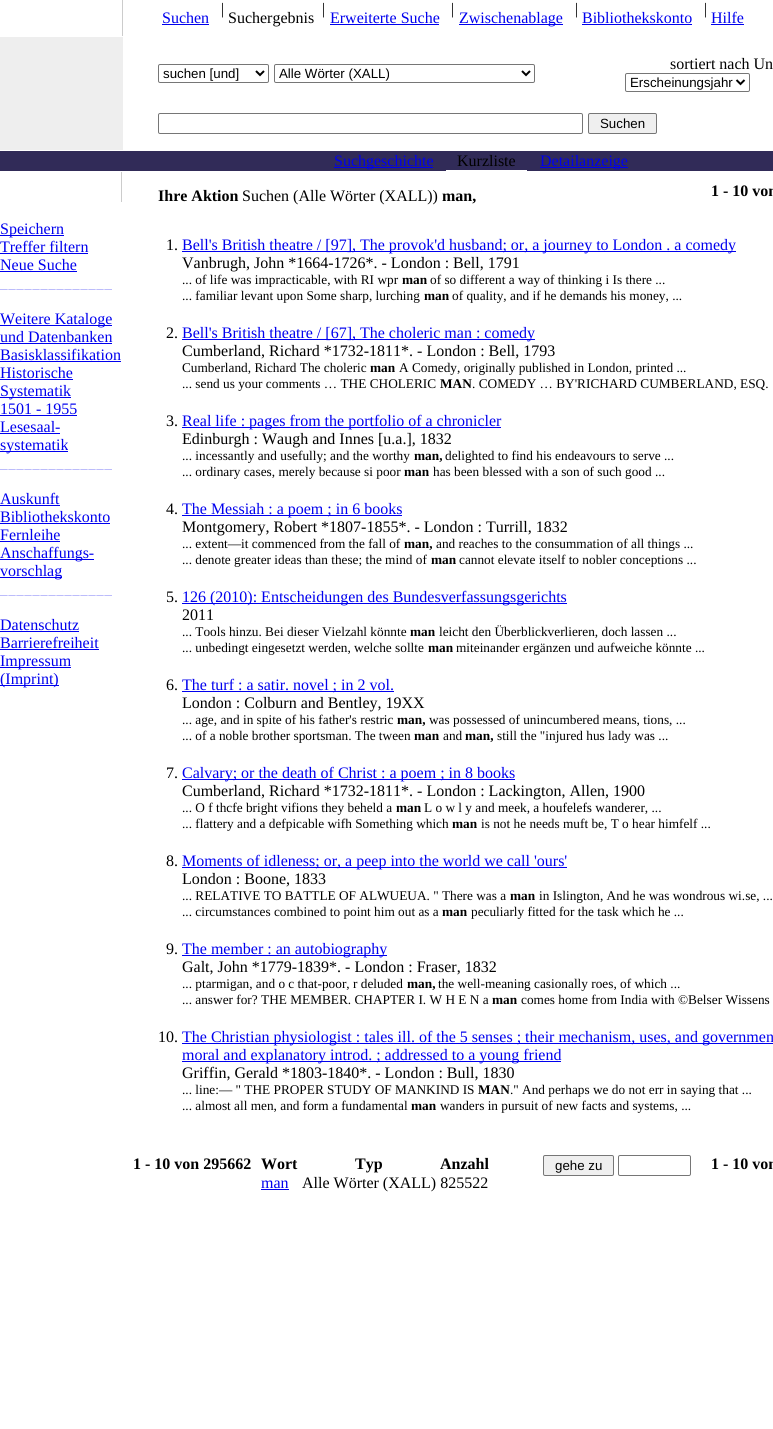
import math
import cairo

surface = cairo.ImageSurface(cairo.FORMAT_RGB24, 773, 1429)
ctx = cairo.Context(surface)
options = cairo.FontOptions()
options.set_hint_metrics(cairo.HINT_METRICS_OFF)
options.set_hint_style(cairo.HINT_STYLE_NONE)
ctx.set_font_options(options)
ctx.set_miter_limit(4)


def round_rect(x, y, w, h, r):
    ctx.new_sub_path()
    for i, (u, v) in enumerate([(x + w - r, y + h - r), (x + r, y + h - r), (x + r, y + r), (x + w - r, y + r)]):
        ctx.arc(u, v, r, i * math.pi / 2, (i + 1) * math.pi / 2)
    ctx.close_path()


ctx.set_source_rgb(1, 1, 1)
ctx.paint()
ctx.set_source_rgb(0.8, 0.8, 0.8)
ctx.rectangle(122, 0, 1, 36)
ctx.fill()
ctx.select_font_face("Liberation Serif")
ctx.set_font_size(16)
ctx.set_source_rgb(0, 0, 0.933)
ctx.move_to(162, 23)
ctx.show_text("Suchen")
ctx.rectangle(162, 24, 47, 1)
ctx.fill()
ctx.set_source_rgb(0, 0, 0)
ctx.move_to(221, 14)
ctx.show_text("|")
ctx.move_to(228, 23)
ctx.show_text("Suchergebnis")
ctx.move_to(322, 14)
ctx.show_text("|")
ctx.set_source_rgb(0, 0, 0.933)
ctx.move_to(330, 23)
ctx.show_text("Erweiterte Suche")
ctx.rectangle(330, 24, 109, 1)
ctx.fill()
ctx.set_source_rgb(0, 0, 0)
ctx.move_to(451, 14)
ctx.show_text("|")
ctx.set_source_rgb(0, 0, 0.933)
ctx.rectangle(459, 24, 104, 1)
ctx.fill()
ctx.move_to(459, 23)
ctx.show_text("Zwischenablage")
ctx.set_source_rgb(0, 0, 0)
ctx.move_to(575, 14)
ctx.show_text("|")
ctx.set_source_rgb(0, 0, 0.933)
ctx.move_to(582, 23)
ctx.show_text("Bibliothekskonto")
ctx.rectangle(582, 24, 110, 1)
ctx.fill()
ctx.set_source_rgb(0, 0, 0)
ctx.move_to(704, 14)
ctx.show_text("|")
ctx.set_source_rgb(0, 0, 0.933)
ctx.move_to(711, 23)
ctx.show_text("Hilfe")
ctx.rectangle(711, 24, 33, 1)
ctx.fill()
ctx.set_source_rgb(0.933, 0.933, 0.933)
ctx.rectangle(0, 37, 123, 113)
ctx.fill()
round_rect(158.5, 64.5, 110, 18, 1.5)
ctx.set_source_rgb(0.463, 0.463, 0.463)
ctx.set_line_width(1)
ctx.stroke()
ctx.new_path()
ctx.move_to(256, 71)
ctx.line_to(260, 75)
ctx.line_to(264, 71)
ctx.set_source_rgb(0, 0, 0)
ctx.set_line_width(2)
ctx.stroke()
ctx.select_font_face("Liberation Sans")
ctx.set_font_size(13.3)
ctx.move_to(163, 78)
ctx.show_text("suchen [und]")
round_rect(274.5, 64.5, 260, 18, 1.5)
ctx.set_source_rgb(0.463, 0.463, 0.463)
ctx.set_line_width(1)
ctx.stroke()
ctx.new_path()
ctx.move_to(522, 71)
ctx.line_to(526, 75)
ctx.line_to(530, 71)
ctx.set_source_rgb(0, 0, 0)
ctx.set_line_width(2)
ctx.stroke()
ctx.move_to(279, 78)
ctx.show_text("Alle Wörter (XALL)")
ctx.select_font_face("Liberation Serif")
ctx.set_font_size(16)
ctx.move_to(670, 69)
ctx.show_text("sortiert nach Un")
round_rect(625.5, 73.5, 124, 18, 1.5)
ctx.set_source_rgb(0.463, 0.463, 0.463)
ctx.set_line_width(1)
ctx.stroke()
ctx.new_path()
ctx.move_to(736.5, 80)
ctx.line_to(740.5, 84)
ctx.line_to(744.5, 80)
ctx.set_source_rgb(0, 0, 0)
ctx.set_line_width(2)
ctx.stroke()
ctx.select_font_face("Liberation Sans")
ctx.set_font_size(13.3)
ctx.move_to(630, 87)
ctx.show_text("Erscheinungsjahr")
round_rect(158.5, 113.5, 424, 20, 1.5)
ctx.set_source_rgb(0.463, 0.463, 0.463)
ctx.set_line_width(1)
ctx.stroke()
ctx.set_source_rgb(0.937, 0.937, 0.937)
round_rect(588.5, 113.5, 68, 20, 1.5)
ctx.fill_preserve()
ctx.set_source_rgb(0.463, 0.463, 0.463)
ctx.stroke()
ctx.set_source_rgb(0, 0, 0)
ctx.move_to(600, 128)
ctx.show_text("Suchen")
ctx.set_source_rgb(0.192, 0.169, 0.345)
ctx.rectangle(0, 151, 773, 20)
ctx.fill()
ctx.set_source_rgb(0, 0, 0.933)
ctx.rectangle(334, 167, 99, 1)
ctx.fill()
ctx.select_font_face("Liberation Serif")
ctx.set_font_size(16)
ctx.move_to(334, 166)
ctx.show_text("Suchgeschichte")
ctx.set_source_rgb(0, 0, 0)
ctx.move_to(457, 166)
ctx.show_text("Kurzliste")
ctx.set_source_rgb(0, 0, 0.933)
ctx.rectangle(540, 167, 88, 1)
ctx.fill()
ctx.move_to(540, 166)
ctx.show_text("Detailanzeige")
ctx.set_source_rgb(1, 1, 1)
ctx.rectangle(446, 170, 81, 1)
ctx.fill()
ctx.set_source_rgb(0.8, 0.8, 0.8)
ctx.rectangle(121, 172, 1, 30)
ctx.fill()
ctx.set_source_rgb(0, 0, 0.933)
ctx.rectangle(0, 235, 64, 1)
ctx.fill()
ctx.move_to(0, 234)
ctx.show_text("Speichern")
ctx.move_to(0, 252)
ctx.show_text("Treffer filtern")
ctx.rectangle(0, 253, 88, 1)
ctx.fill()
ctx.move_to(0, 270)
ctx.show_text("Neue Suche")
ctx.rectangle(0, 271, 77, 1)
ctx.fill()
ctx.rectangle(0, 289, 112, 1)
ctx.fill()
ctx.set_source_rgb(1, 1, 1)
ctx.move_to(0, 288)
ctx.show_text("______________")
ctx.set_source_rgb(0, 0, 0.933)
ctx.rectangle(0, 325, 112, 1)
ctx.fill()
ctx.move_to(0, 324)
ctx.show_text("Weitere Kataloge")
ctx.move_to(0, 342)
ctx.show_text("und Datenbanken")
ctx.rectangle(0, 343, 112, 1)
ctx.fill()
ctx.move_to(0, 360)
ctx.show_text("Basisklassifikation")
ctx.rectangle(0, 361, 121, 1)
ctx.fill()
ctx.move_to(0, 378)
ctx.show_text("Historische")
ctx.rectangle(0, 379, 73, 1)
ctx.fill()
ctx.rectangle(0, 397, 71, 1)
ctx.fill()
ctx.move_to(0, 396)
ctx.show_text("Systematik")
ctx.move_to(0, 414)
ctx.show_text("1501 - 1955")
ctx.rectangle(0, 415, 77, 1)
ctx.fill()
ctx.move_to(0, 432)
ctx.show_text("Lesesaal-")
ctx.rectangle(0, 433, 60, 1)
ctx.fill()
ctx.rectangle(0, 451, 68, 1)
ctx.fill()
ctx.move_to(0, 450)
ctx.show_text("systematik")
ctx.rectangle(0, 469, 112, 1)
ctx.fill()
ctx.set_source_rgb(1, 1, 1)
ctx.move_to(0, 468)
ctx.show_text("______________")
ctx.set_source_rgb(0, 0, 0.933)
ctx.move_to(0, 504)
ctx.show_text("Auskunft")
ctx.rectangle(0, 505, 60, 1)
ctx.fill()
ctx.move_to(0, 522)
ctx.show_text("Bibliothekskonto")
ctx.rectangle(0, 523, 110, 1)
ctx.fill()
ctx.move_to(0, 540)
ctx.show_text("Fernleihe")
ctx.rectangle(0, 541, 60, 1)
ctx.fill()
ctx.rectangle(0, 559, 94, 1)
ctx.fill()
ctx.move_to(0, 558)
ctx.show_text("Anschaffungs-")
ctx.rectangle(0, 577, 62, 1)
ctx.fill()
ctx.move_to(0, 576)
ctx.show_text("vorschlag")
ctx.rectangle(0, 595, 112, 1)
ctx.fill()
ctx.set_source_rgb(1, 1, 1)
ctx.move_to(0, 594)
ctx.show_text("______________")
ctx.set_source_rgb(0, 0, 0.933)
ctx.move_to(0, 630)
ctx.show_text("Datenschutz")
ctx.rectangle(0, 631, 79, 1)
ctx.fill()
ctx.move_to(0, 648)
ctx.show_text("Barrierefreiheit")
ctx.rectangle(0, 649, 99, 1)
ctx.fill()
ctx.rectangle(0, 667, 71, 1)
ctx.fill()
ctx.move_to(0, 666)
ctx.show_text("Impressum")
ctx.rectangle(0, 685, 59, 1)
ctx.fill()
ctx.move_to(0, 684)
ctx.show_text("(Imprint)")
ctx.select_font_face("Liberation Serif", cairo.FONT_SLANT_NORMAL, cairo.FONT_WEIGHT_BOLD)
ctx.set_source_rgb(0, 0, 0)
ctx.move_to(158, 201)
ctx.show_text("Ihre Aktion")
ctx.select_font_face("Liberation Serif")
ctx.move_to(242, 201)
ctx.show_text("Suchen (Alle Wörter (XALL))")
ctx.select_font_face("Liberation Serif", cairo.FONT_SLANT_NORMAL, cairo.FONT_WEIGHT_BOLD)
ctx.move_to(442, 201)
ctx.show_text("man,")
ctx.move_to(711, 196)
ctx.show_text("1 - 10 von")
ctx.select_font_face("Liberation Serif")
ctx.move_to(166, 250)
ctx.show_text("1.")
ctx.set_source_rgb(0, 0, 0.933)
ctx.rectangle(182, 251, 554, 1)
ctx.fill()
ctx.move_to(182, 250)
ctx.show_text("Bell's British theatre / [97], The provok'd husband; or, a journey to London . a comedy")
ctx.set_source_rgb(0, 0, 0)
ctx.move_to(182, 268)
ctx.show_text("Vanbrugh, John *1664-1726*. - London : Bell, 1791")
ctx.set_font_size(13.3)
ctx.move_to(182, 284)
ctx.show_text("... of life was impracticable, with RI wpr")
ctx.select_font_face("Liberation Serif", cairo.FONT_SLANT_NORMAL, cairo.FONT_WEIGHT_BOLD)
ctx.move_to(402, 284)
ctx.show_text("man")
ctx.select_font_face("Liberation Serif")
ctx.move_to(430, 284)
ctx.show_text("of so different a way of thinking i Is there ...")
ctx.move_to(182, 300)
ctx.show_text("... familiar levant upon Some sharp, lurching")
ctx.select_font_face("Liberation Serif", cairo.FONT_SLANT_NORMAL, cairo.FONT_WEIGHT_BOLD)
ctx.move_to(424, 300)
ctx.show_text("man")
ctx.select_font_face("Liberation Serif")
ctx.move_to(452, 300)
ctx.show_text("of quality, and if he demands his money, ...")
ctx.set_font_size(16)
ctx.move_to(166, 338)
ctx.show_text("2.")
ctx.set_source_rgb(0, 0, 0.933)
ctx.rectangle(182, 339, 353, 1)
ctx.fill()
ctx.move_to(182, 338)
ctx.show_text("Bell's British theatre / [67], The choleric man : comedy")
ctx.set_source_rgb(0, 0, 0)
ctx.move_to(182, 356)
ctx.show_text("Cumberland, Richard *1732-1811*. - London : Bell, 1793")
ctx.set_font_size(13.3)
ctx.move_to(182, 372)
ctx.show_text("Cumberland, Richard The choleric")
ctx.select_font_face("Liberation Serif", cairo.FONT_SLANT_NORMAL, cairo.FONT_WEIGHT_BOLD)
ctx.move_to(370, 372)
ctx.show_text("man")
ctx.select_font_face("Liberation Serif")
ctx.move_to(399, 372)
ctx.show_text("A Comedy, originally published in London, printed ...")
ctx.move_to(182, 388)
ctx.show_text("... send us your comments … THE CHOLERIC")
ctx.select_font_face("Liberation Serif", cairo.FONT_SLANT_NORMAL, cairo.FONT_WEIGHT_BOLD)
ctx.move_to(440, 388)
ctx.show_text("MAN")
ctx.select_font_face("Liberation Serif")
ctx.move_to(472, 388)
ctx.show_text(". COMEDY … BY'RICHARD CUMBERLAND, ESQ.")
ctx.set_font_size(16)
ctx.move_to(166, 426)
ctx.show_text("3.")
ctx.set_source_rgb(0, 0, 0.933)
ctx.rectangle(182, 427, 319, 1)
ctx.fill()
ctx.move_to(182, 426)
ctx.show_text("Real life : pages from the portfolio of a chronicler")
ctx.set_source_rgb(0, 0, 0)
ctx.move_to(182, 444)
ctx.show_text("Edinburgh : Waugh and Innes [u.a.], 1832")
ctx.set_font_size(13.3)
ctx.move_to(182, 460)
ctx.show_text("... incessantly and usefully; and the worthy")
ctx.select_font_face("Liberation Serif", cairo.FONT_SLANT_NORMAL, cairo.FONT_WEIGHT_BOLD)
ctx.move_to(414, 460)
ctx.show_text("man,")
ctx.select_font_face("Liberation Serif")
ctx.move_to(445, 460)
ctx.show_text("delighted to find his endeavours to serve ...")
ctx.move_to(182, 476)
ctx.show_text("... ordinary cases, merely because si poor")
ctx.select_font_face("Liberation Serif", cairo.FONT_SLANT_NORMAL, cairo.FONT_WEIGHT_BOLD)
ctx.move_to(404, 476)
ctx.show_text("man")
ctx.select_font_face("Liberation Serif")
ctx.move_to(433, 476)
ctx.show_text("has been blessed with a son of such good ...")
ctx.set_font_size(16)
ctx.move_to(166, 514)
ctx.show_text("4.")
ctx.set_source_rgb(0, 0, 0.933)
ctx.rectangle(182, 515, 220, 1)
ctx.fill()
ctx.move_to(182, 514)
ctx.show_text("The Messiah : a poem ; in 6 books")
ctx.set_source_rgb(0, 0, 0)
ctx.move_to(182, 532)
ctx.show_text("Montgomery, Robert *1807-1855*. - London : Turrill, 1832")
ctx.set_font_size(13.3)
ctx.move_to(182, 548)
ctx.show_text("... extent—it commenced from the fall of")
ctx.select_font_face("Liberation Serif", cairo.FONT_SLANT_NORMAL, cairo.FONT_WEIGHT_BOLD)
ctx.move_to(404, 548)
ctx.show_text("man,")
ctx.select_font_face("Liberation Serif")
ctx.move_to(436, 548)
ctx.show_text("and reaches to the consummation of all things ...")
ctx.move_to(182, 564)
ctx.show_text("... denote greater ideas than these; the mind of")
ctx.select_font_face("Liberation Serif", cairo.FONT_SLANT_NORMAL, cairo.FONT_WEIGHT_BOLD)
ctx.move_to(431, 564)
ctx.show_text("man")
ctx.select_font_face("Liberation Serif")
ctx.move_to(459, 564)
ctx.show_text("cannot elevate itself to nobler conceptions ...")
ctx.set_font_size(16)
ctx.move_to(166, 602)
ctx.show_text("5.")
ctx.set_source_rgb(0, 0, 0.933)
ctx.rectangle(182, 603, 385, 1)
ctx.fill()
ctx.move_to(182, 602)
ctx.show_text("126 (2010): Entscheidungen des Bundesverfassungsgerichts")
ctx.set_source_rgb(0, 0, 0)
ctx.move_to(182, 620)
ctx.show_text("2011")
ctx.set_font_size(13.3)
ctx.move_to(182, 636)
ctx.show_text("... Tools hinzu. Bei dieser Vielzahl könnte")
ctx.select_font_face("Liberation Serif", cairo.FONT_SLANT_NORMAL, cairo.FONT_WEIGHT_BOLD)
ctx.move_to(410, 636)
ctx.show_text("man")
ctx.select_font_face("Liberation Serif")
ctx.move_to(439, 636)
ctx.show_text("leicht den Überblickverlieren, doch lassen ...")
ctx.move_to(182, 652)
ctx.show_text("... unbedingt eingesetzt werden, welche sollte")
ctx.select_font_face("Liberation Serif", cairo.FONT_SLANT_NORMAL, cairo.FONT_WEIGHT_BOLD)
ctx.move_to(428, 652)
ctx.show_text("man")
ctx.select_font_face("Liberation Serif")
ctx.move_to(456, 652)
ctx.show_text("miteinander ergänzen und aufweiche könnte ...")
ctx.set_font_size(16)
ctx.move_to(166, 690)
ctx.show_text("6.")
ctx.set_source_rgb(0, 0, 0.933)
ctx.rectangle(182, 691, 212, 1)
ctx.fill()
ctx.move_to(182, 690)
ctx.show_text("The turf : a satir. novel ; in 2 vol.")
ctx.set_source_rgb(0, 0, 0)
ctx.move_to(182, 708)
ctx.show_text("London : Colburn and Bentley, 19XX")
ctx.set_font_size(13.3)
ctx.move_to(182, 724)
ctx.show_text("... age, and in spite of his father's restric")
ctx.select_font_face("Liberation Serif", cairo.FONT_SLANT_NORMAL, cairo.FONT_WEIGHT_BOLD)
ctx.move_to(397, 724)
ctx.show_text("man,")
ctx.select_font_face("Liberation Serif")
ctx.move_to(429, 724)
ctx.show_text("was possessed of unincumbered means, tions, ...")
ctx.move_to(182, 740)
ctx.show_text("... of a noble brother sportsman. The tween")
ctx.select_font_face("Liberation Serif", cairo.FONT_SLANT_NORMAL, cairo.FONT_WEIGHT_BOLD)
ctx.move_to(414, 740)
ctx.show_text("man")
ctx.select_font_face("Liberation Serif")
ctx.move_to(443, 740)
ctx.show_text("and")
ctx.select_font_face("Liberation Serif", cairo.FONT_SLANT_NORMAL, cairo.FONT_WEIGHT_BOLD)
ctx.move_to(465, 740)
ctx.show_text("man,")
ctx.select_font_face("Liberation Serif")
ctx.move_to(497, 740)
ctx.show_text("still the \"injured hus lady was ...")
ctx.set_font_size(16)
ctx.move_to(166, 778)
ctx.show_text("7.")
ctx.set_source_rgb(0, 0, 0.933)
ctx.rectangle(182, 779, 333, 1)
ctx.fill()
ctx.move_to(182, 778)
ctx.show_text("Calvary; or the death of Christ : a poem ; in 8 books")
ctx.set_source_rgb(0, 0, 0)
ctx.move_to(182, 796)
ctx.show_text("Cumberland, Richard *1732-1811*. - London : Lackington, Allen, 1900")
ctx.set_font_size(13.3)
ctx.move_to(182, 812)
ctx.show_text("... O f thcfe bright vifions they beheld a")
ctx.select_font_face("Liberation Serif", cairo.FONT_SLANT_NORMAL, cairo.FONT_WEIGHT_BOLD)
ctx.move_to(396, 812)
ctx.show_text("man")
ctx.select_font_face("Liberation Serif")
ctx.move_to(424, 812)
ctx.show_text("L o w l y and meek, a houfelefs wanderer, ...")
ctx.move_to(182, 828)
ctx.show_text("... flattery and a defpicable wifh Something which")
ctx.select_font_face("Liberation Serif", cairo.FONT_SLANT_NORMAL, cairo.FONT_WEIGHT_BOLD)
ctx.move_to(452, 828)
ctx.show_text("man")
ctx.select_font_face("Liberation Serif")
ctx.move_to(481, 828)
ctx.show_text("is not he needs muft be, T o hear himfelf ...")
ctx.set_font_size(16)
ctx.move_to(166, 866)
ctx.show_text("8.")
ctx.set_source_rgb(0, 0, 0.933)
ctx.rectangle(182, 867, 385, 1)
ctx.fill()
ctx.move_to(182, 866)
ctx.show_text("Moments of idleness; or, a peep into the world we call 'ours'")
ctx.set_source_rgb(0, 0, 0)
ctx.move_to(182, 884)
ctx.show_text("London : Boone, 1833")
ctx.set_font_size(13.3)
ctx.move_to(182, 900)
ctx.show_text("... RELATIVE TO BATTLE OF ALWUEUA. \" There was a")
ctx.select_font_face("Liberation Serif", cairo.FONT_SLANT_NORMAL, cairo.FONT_WEIGHT_BOLD)
ctx.move_to(510, 900)
ctx.show_text("man")
ctx.select_font_face("Liberation Serif")
ctx.move_to(539, 900)
ctx.show_text("in Islington, And he was wondrous wi.se, ...")
ctx.move_to(182, 916)
ctx.show_text("... circumstances combined to point him out as a")
ctx.select_font_face("Liberation Serif", cairo.FONT_SLANT_NORMAL, cairo.FONT_WEIGHT_BOLD)
ctx.move_to(442, 916)
ctx.show_text("man")
ctx.select_font_face("Liberation Serif")
ctx.move_to(471, 916)
ctx.show_text("peculiarly fitted for the task which he ...")
ctx.set_font_size(16)
ctx.move_to(166, 954)
ctx.show_text("9.")
ctx.set_source_rgb(0, 0, 0.933)
ctx.rectangle(182, 955, 205, 1)
ctx.fill()
ctx.move_to(182, 954)
ctx.show_text("The member : an autobiography")
ctx.set_source_rgb(0, 0, 0)
ctx.move_to(182, 972)
ctx.show_text("Galt, John *1779-1839*. - London : Fraser, 1832")
ctx.set_font_size(13.3)
ctx.move_to(182, 988)
ctx.show_text("... ptarmigan, and o c that-poor, r deluded")
ctx.select_font_face("Liberation Serif", cairo.FONT_SLANT_NORMAL, cairo.FONT_WEIGHT_BOLD)
ctx.move_to(407, 988)
ctx.show_text("man,")
ctx.select_font_face("Liberation Serif")
ctx.move_to(438, 988)
ctx.show_text("the well-meaning casionally roes, of which ...")
ctx.move_to(182, 1004)
ctx.show_text("... answer for? THE MEMBER. CHAPTER I. W H E N a")
ctx.select_font_face("Liberation Serif", cairo.FONT_SLANT_NORMAL, cairo.FONT_WEIGHT_BOLD)
ctx.move_to(492, 1004)
ctx.show_text("man")
ctx.select_font_face("Liberation Serif")
ctx.move_to(521, 1004)
ctx.show_text("comes home from India with ©Belser Wissens")
ctx.set_font_size(16)
ctx.move_to(158, 1042)
ctx.show_text("10.")
ctx.set_source_rgb(0, 0, 0.933)
ctx.rectangle(182, 1043, 591, 1)
ctx.fill()
ctx.move_to(182, 1042)
ctx.show_text("The Christian physiologist : tales ill. of the 5 senses ; their mechanism, uses, and governmen")
ctx.rectangle(182, 1061, 379, 1)
ctx.fill()
ctx.move_to(182, 1060)
ctx.show_text("moral and explanatory introd. ; addressed to a young friend")
ctx.set_source_rgb(0, 0, 0)
ctx.move_to(182, 1078)
ctx.show_text("Griffin, Gerald *1803-1840*. - London : Bull, 1830")
ctx.set_font_size(13.3)
ctx.move_to(182, 1094)
ctx.show_text("... line:— \" THE PROPER STUDY OF MANKIND IS")
ctx.select_font_face("Liberation Serif", cairo.FONT_SLANT_NORMAL, cairo.FONT_WEIGHT_BOLD)
ctx.move_to(478, 1094)
ctx.show_text("MAN")
ctx.select_font_face("Liberation Serif")
ctx.move_to(510, 1094)
ctx.show_text(".\" And perhaps we do not err in saying that ...")
ctx.move_to(182, 1110)
ctx.show_text("... almost all men, and form a fundamental")
ctx.select_font_face("Liberation Serif", cairo.FONT_SLANT_NORMAL, cairo.FONT_WEIGHT_BOLD)
ctx.move_to(411, 1110)
ctx.show_text("man")
ctx.select_font_face("Liberation Serif")
ctx.move_to(440, 1110)
ctx.show_text("wanders in pursuit of new facts and systems, ...")
ctx.select_font_face("Liberation Serif", cairo.FONT_SLANT_NORMAL, cairo.FONT_WEIGHT_BOLD)
ctx.set_font_size(16)
ctx.move_to(133, 1169)
ctx.show_text("1 - 10 von 295662")
ctx.move_to(261, 1169)
ctx.show_text("Wort")
ctx.move_to(355, 1169)
ctx.show_text("Typ")
ctx.move_to(440, 1169)
ctx.show_text("Anzahl")
ctx.select_font_face("Liberation Serif")
ctx.set_source_rgb(0, 0, 0.933)
ctx.move_to(261, 1188)
ctx.show_text("man")
ctx.rectangle(261, 1189, 28, 1)
ctx.fill()
ctx.set_source_rgb(0, 0, 0)
ctx.move_to(302, 1188)
ctx.show_text("Alle Wörter (XALL) 825522")
ctx.set_source_rgb(0.937, 0.937, 0.937)
round_rect(543.5, 1155.5, 70, 20, 1.5)
ctx.fill_preserve()
ctx.set_source_rgb(0.463, 0.463, 0.463)
ctx.stroke()
ctx.select_font_face("Liberation Sans")
ctx.set_font_size(13.3)
ctx.set_source_rgb(0, 0, 0)
ctx.move_to(555, 1170)
ctx.show_text("gehe zu")
round_rect(618.5, 1155.5, 72, 20, 1.5)
ctx.set_source_rgb(0.463, 0.463, 0.463)
ctx.stroke()
ctx.select_font_face("Liberation Serif", cairo.FONT_SLANT_NORMAL, cairo.FONT_WEIGHT_BOLD)
ctx.set_font_size(16)
ctx.set_source_rgb(0, 0, 0)
ctx.move_to(711, 1169)
ctx.show_text("1 - 10 von")
surface.write_to_png("page.png")
